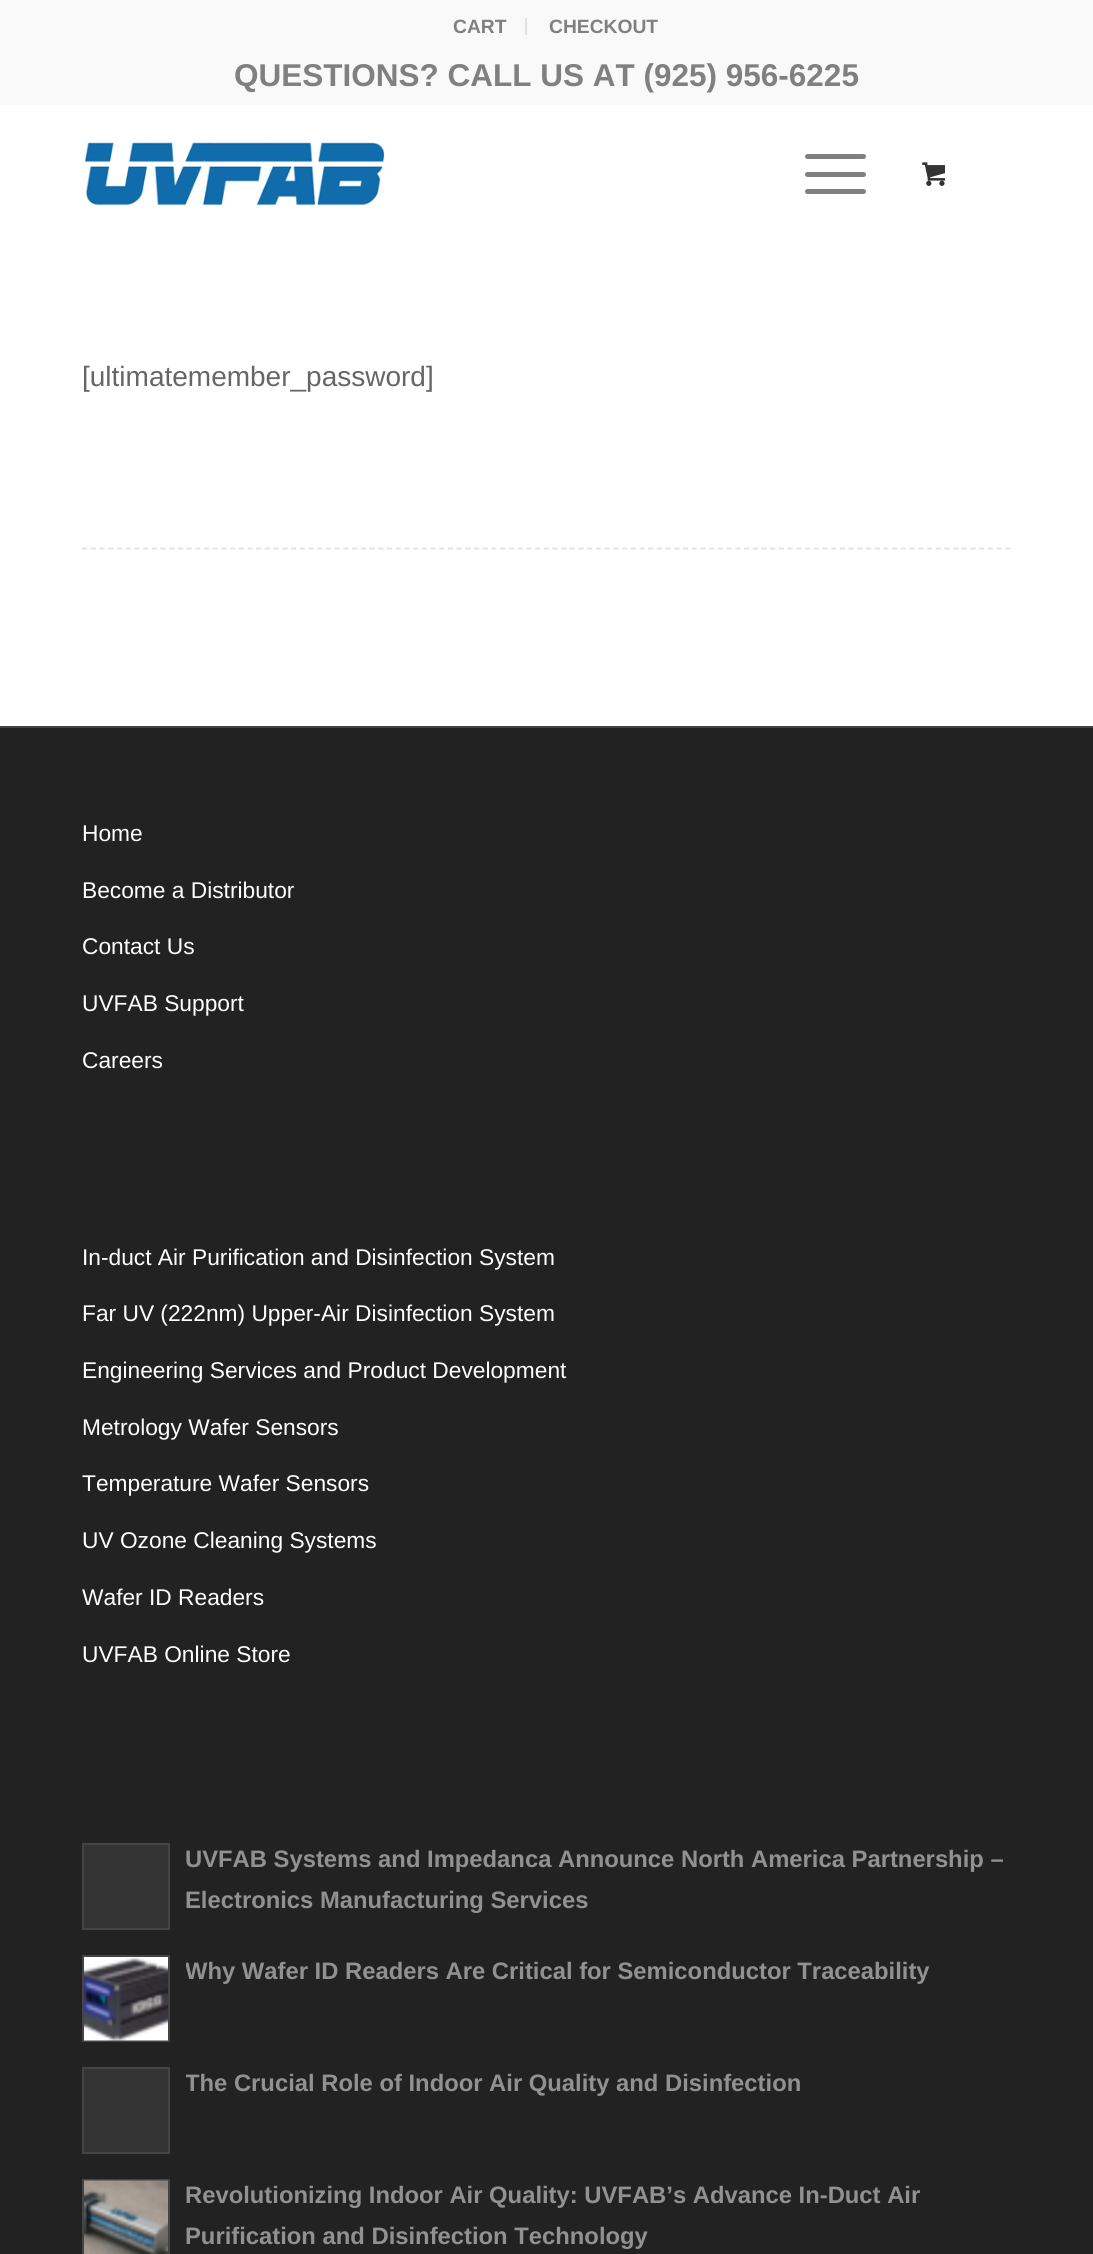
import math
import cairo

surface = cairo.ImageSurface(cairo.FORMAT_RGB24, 1093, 2254)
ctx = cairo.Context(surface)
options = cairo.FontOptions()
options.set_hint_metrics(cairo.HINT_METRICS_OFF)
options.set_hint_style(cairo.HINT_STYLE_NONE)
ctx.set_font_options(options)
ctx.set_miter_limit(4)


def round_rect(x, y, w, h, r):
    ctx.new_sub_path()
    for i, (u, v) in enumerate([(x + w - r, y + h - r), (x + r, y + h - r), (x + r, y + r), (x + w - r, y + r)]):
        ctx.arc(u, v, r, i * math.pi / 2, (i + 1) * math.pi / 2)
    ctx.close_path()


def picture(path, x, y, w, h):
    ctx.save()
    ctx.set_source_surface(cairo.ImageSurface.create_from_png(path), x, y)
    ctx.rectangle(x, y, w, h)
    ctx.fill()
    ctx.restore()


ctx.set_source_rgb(1, 1, 1)
ctx.paint()
ctx.set_source_rgb(0.973, 0.973, 0.973)
ctx.rectangle(0, 0, 1093, 105)
ctx.fill()
ctx.set_source_rgb(0.882, 0.882, 0.882)
ctx.rectangle(525, 18, 2, 17)
ctx.fill()
ctx.select_font_face("Liberation Sans", cairo.FONT_SLANT_NORMAL, cairo.FONT_WEIGHT_BOLD)
ctx.set_font_size(19.25)
ctx.set_source_rgb(0.502, 0.502, 0.502)
ctx.move_to(453, 33)
ctx.show_text("CART")
ctx.move_to(549, 33)
ctx.show_text("CHECKOUT")
ctx.set_font_size(31.5)
ctx.move_to(234, 86)
ctx.show_text("QUESTIONS? CALL US AT (925) 956-6225")
picture("img1.png", 85, 142, 300, 63)
round_rect(805, 172, 61, 5, 2.5)
ctx.fill()
round_rect(805, 154, 61, 5, 2.5)
ctx.fill()
round_rect(805, 189, 61, 5, 2.5)
ctx.fill()
picture("img2.png", 922, 162, 23, 24)
ctx.select_font_face("Liberation Sans")
ctx.set_font_size(28)
ctx.set_source_rgb(0.4, 0.4, 0.4)
ctx.move_to(82, 386)
ctx.show_text("[ultimatemember_password]")
ctx.new_path()
ctx.move_to(82, 548.5)
ctx.line_to(1011.5, 548.5)
ctx.set_source_rgb(0.882, 0.882, 0.882)
ctx.set_line_width(1.8)
ctx.set_dash([5.25, 3.46])
ctx.stroke()
ctx.set_source_rgb(0.133, 0.133, 0.133)
ctx.rectangle(0, 728, 1093, 1526)
ctx.fill()
ctx.set_source_rgb(0.267, 0.267, 0.267)
ctx.rectangle(0, 726, 1093, 2)
ctx.fill()
ctx.set_font_size(22.75)
ctx.set_source_rgb(1, 1, 1)
ctx.move_to(82, 841)
ctx.show_text("Home")
ctx.move_to(82, 898)
ctx.show_text("Become a Distributor")
ctx.move_to(82, 954)
ctx.show_text("Contact Us")
ctx.move_to(82, 1011)
ctx.show_text("UVFAB Support")
ctx.move_to(82, 1068)
ctx.show_text("Careers")
ctx.move_to(82, 1265)
ctx.show_text("In-duct Air Purification and Disinfection System")
ctx.move_to(82, 1321)
ctx.show_text("Far UV (222nm) Upper-Air Disinfection System")
ctx.move_to(82, 1378)
ctx.show_text("Engineering Services and Product Development")
ctx.move_to(82, 1435)
ctx.show_text("Metrology Wafer Sensors")
ctx.move_to(82, 1491)
ctx.show_text("Temperature Wafer Sensors")
ctx.move_to(82, 1548)
ctx.show_text("UV Ozone Cleaning Systems")
ctx.move_to(82, 1605)
ctx.show_text("Wafer ID Readers")
ctx.move_to(82, 1662)
ctx.show_text("UVFAB Online Store")
ctx.set_source_rgb(0.2, 0.2, 0.2)
ctx.rectangle(83, 1844, 86, 85)
ctx.fill_preserve()
ctx.set_source_rgb(0.267, 0.267, 0.267)
ctx.set_line_width(2)
ctx.set_dash([])
ctx.stroke()
ctx.select_font_face("Liberation Sans", cairo.FONT_SLANT_NORMAL, cairo.FONT_WEIGHT_BOLD)
ctx.set_font_size(23.8)
ctx.set_source_rgb(0.569, 0.569, 0.569)
ctx.move_to(185, 1867)
ctx.show_text("UVFAB Systems and Impedanca Announce North America Partnership –")
ctx.move_to(185, 1908)
ctx.show_text("Electronics Manufacturing Services")
ctx.rectangle(83, 1956, 86, 85)
ctx.set_source_rgb(0.267, 0.267, 0.267)
ctx.stroke()
picture("img3.png", 84, 1957, 84, 84)
ctx.save()
ctx.rectangle(186, 1951, 826, 41)
ctx.clip()
ctx.set_source_rgb(0.569, 0.569, 0.569)
ctx.move_to(185, 1979)
ctx.show_text("Why Wafer ID Readers Are Critical for Semiconductor Traceability")
ctx.restore()
ctx.set_source_rgb(0.2, 0.2, 0.2)
ctx.rectangle(83, 2068, 86, 85)
ctx.fill_preserve()
ctx.set_source_rgb(0.267, 0.267, 0.267)
ctx.stroke()
ctx.save()
ctx.rectangle(186, 2063, 826, 41)
ctx.clip()
ctx.set_source_rgb(0.569, 0.569, 0.569)
ctx.move_to(185, 2091)
ctx.show_text("The Crucial Role of Indoor Air Quality and Disinfection")
ctx.restore()
ctx.rectangle(83, 2180, 86, 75)
ctx.stroke()
picture("img4.png", 84, 2180, 84, 74)
ctx.set_source_rgb(0.569, 0.569, 0.569)
ctx.move_to(185, 2203)
ctx.show_text("Revolutionizing Indoor Air Quality: UVFAB’s Advance In-Duct Air")
ctx.move_to(185, 2244)
ctx.show_text("Purification and Disinfection Technology")
surface.write_to_png("page.png")
